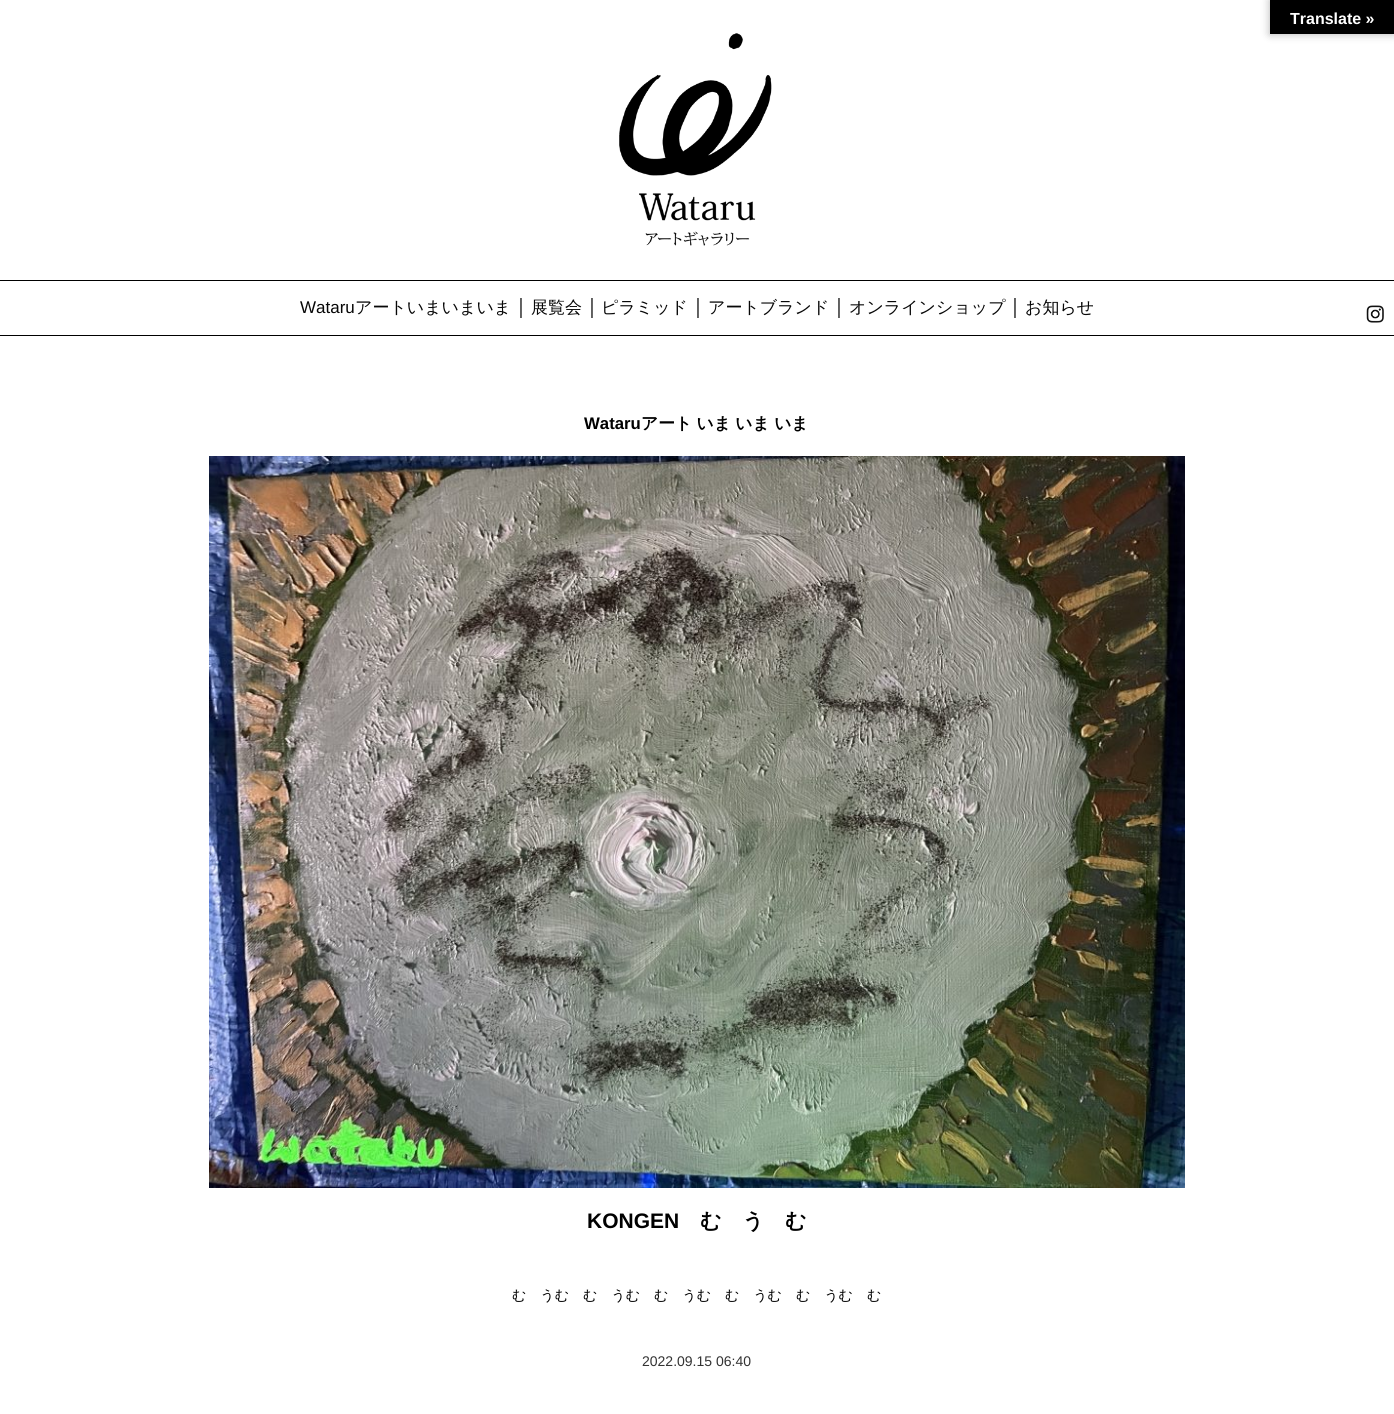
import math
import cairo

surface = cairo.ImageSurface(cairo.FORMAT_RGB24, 1394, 1414)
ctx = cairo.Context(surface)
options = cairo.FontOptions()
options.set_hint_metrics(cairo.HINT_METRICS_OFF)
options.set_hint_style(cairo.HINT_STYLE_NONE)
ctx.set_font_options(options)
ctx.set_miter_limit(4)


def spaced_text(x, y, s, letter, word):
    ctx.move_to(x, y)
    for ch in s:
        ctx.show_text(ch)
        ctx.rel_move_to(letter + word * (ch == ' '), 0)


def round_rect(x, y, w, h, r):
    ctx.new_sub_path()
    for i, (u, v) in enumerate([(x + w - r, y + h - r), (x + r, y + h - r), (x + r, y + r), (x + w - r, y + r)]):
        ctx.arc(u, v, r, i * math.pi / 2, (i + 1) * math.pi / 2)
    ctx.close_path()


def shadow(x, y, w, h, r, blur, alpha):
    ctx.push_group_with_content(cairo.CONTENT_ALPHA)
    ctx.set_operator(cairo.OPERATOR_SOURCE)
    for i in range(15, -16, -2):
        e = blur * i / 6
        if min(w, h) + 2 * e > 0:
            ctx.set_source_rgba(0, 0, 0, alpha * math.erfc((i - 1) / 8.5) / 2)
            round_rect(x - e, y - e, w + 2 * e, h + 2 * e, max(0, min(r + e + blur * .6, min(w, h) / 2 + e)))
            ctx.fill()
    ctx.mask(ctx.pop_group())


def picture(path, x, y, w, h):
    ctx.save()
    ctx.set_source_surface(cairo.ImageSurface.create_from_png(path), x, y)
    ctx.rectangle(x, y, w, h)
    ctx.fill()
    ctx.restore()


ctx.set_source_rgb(1, 1, 1)
ctx.paint()
ctx.set_source_rgb(0, 0, 0)
shadow(1270, 0, 124, 34, 0, 4.5, 0.3)
ctx.set_source_rgb(0, 0, 0)
ctx.rectangle(1270, 0, 124, 34)
ctx.fill()
ctx.select_font_face("Liberation Sans", cairo.FONT_SLANT_NORMAL, cairo.FONT_WEIGHT_BOLD)
ctx.set_font_size(16)
ctx.set_source_rgb(1, 1, 1)
ctx.move_to(1290, 24)
ctx.show_text("Translate »")
ctx.set_font_size(16.75)
ctx.set_source_rgb(0, 0, 0)
ctx.move_to(584, 429)
ctx.show_text("Wataru")
ctx.select_font_face("WenQuanYi Zen Hei", cairo.FONT_SLANT_NORMAL, cairo.FONT_WEIGHT_BOLD)
spaced_text(641, 429, "アート いま いま いま", 0, -0.5)
picture("img1.png", 209, 456, 976, 732)
ctx.select_font_face("Liberation Sans", cairo.FONT_SLANT_NORMAL, cairo.FONT_WEIGHT_BOLD)
ctx.set_font_size(21)
ctx.move_to(587, 1228)
ctx.show_text("KONGEN")
ctx.select_font_face("WenQuanYi Zen Hei", cairo.FONT_SLANT_NORMAL, cairo.FONT_WEIGHT_BOLD)
ctx.move_to(700, 1228)
ctx.show_text("む　う　む")
ctx.select_font_face("WenQuanYi Zen Hei Medium")
ctx.set_font_size(14)
ctx.move_to(512, 1300)
ctx.show_text("む　うむ　む　うむ　む　うむ　む　うむ　む　うむ　む")
ctx.select_font_face("Liberation Sans")
ctx.set_source_rgb(0.2, 0.2, 0.2)
ctx.move_to(642, 1366)
ctx.show_text("2022.09.15 06:40")
picture("img2.png", 619, 33, 153, 213)
ctx.set_source_rgb(0, 0, 0)
ctx.rectangle(0, 280, 1394, 1)
ctx.fill()
ctx.rectangle(0, 335, 1394, 1)
ctx.fill()
ctx.set_font_size(17)
ctx.set_source_rgb(0.031, 0.031, 0.031)
ctx.move_to(300, 313)
ctx.show_text("Wataru")
ctx.select_font_face("WenQuanYi Zen Hei Medium")
ctx.move_to(355, 313)
ctx.show_text("アートいまいまいま")
ctx.set_font_size(20)
ctx.set_source_rgb(0, 0, 0)
ctx.move_to(511, 313)
ctx.show_text("｜")
ctx.set_font_size(17)
ctx.set_source_rgb(0.031, 0.031, 0.031)
ctx.move_to(531, 313)
ctx.show_text("展覧会")
ctx.set_font_size(20)
ctx.set_source_rgb(0, 0, 0)
ctx.move_to(582, 313)
ctx.show_text("｜")
ctx.set_font_size(17)
ctx.set_source_rgb(0.031, 0.031, 0.031)
ctx.move_to(601, 313)
ctx.show_text("ピラミッド")
ctx.set_font_size(20)
ctx.set_source_rgb(0, 0, 0)
ctx.move_to(688, 313)
ctx.show_text("｜")
ctx.set_font_size(17)
ctx.set_source_rgb(0.031, 0.031, 0.031)
ctx.move_to(708, 313)
ctx.show_text("アートブランド")
ctx.set_font_size(20)
ctx.set_source_rgb(0, 0, 0)
ctx.move_to(829, 313)
ctx.show_text("｜")
ctx.set_font_size(17)
ctx.set_source_rgb(0.031, 0.031, 0.031)
ctx.move_to(849, 313)
ctx.show_text("オンラインショップ")
ctx.set_font_size(20)
ctx.set_source_rgb(0, 0, 0)
ctx.move_to(1005, 313)
ctx.show_text("｜")
ctx.set_font_size(17)
ctx.set_source_rgb(0.031, 0.031, 0.031)
ctx.move_to(1025, 313)
ctx.show_text("お知らせ")
picture("img3.png", 1366, 305, 18, 18)
surface.write_to_png("page.png")
